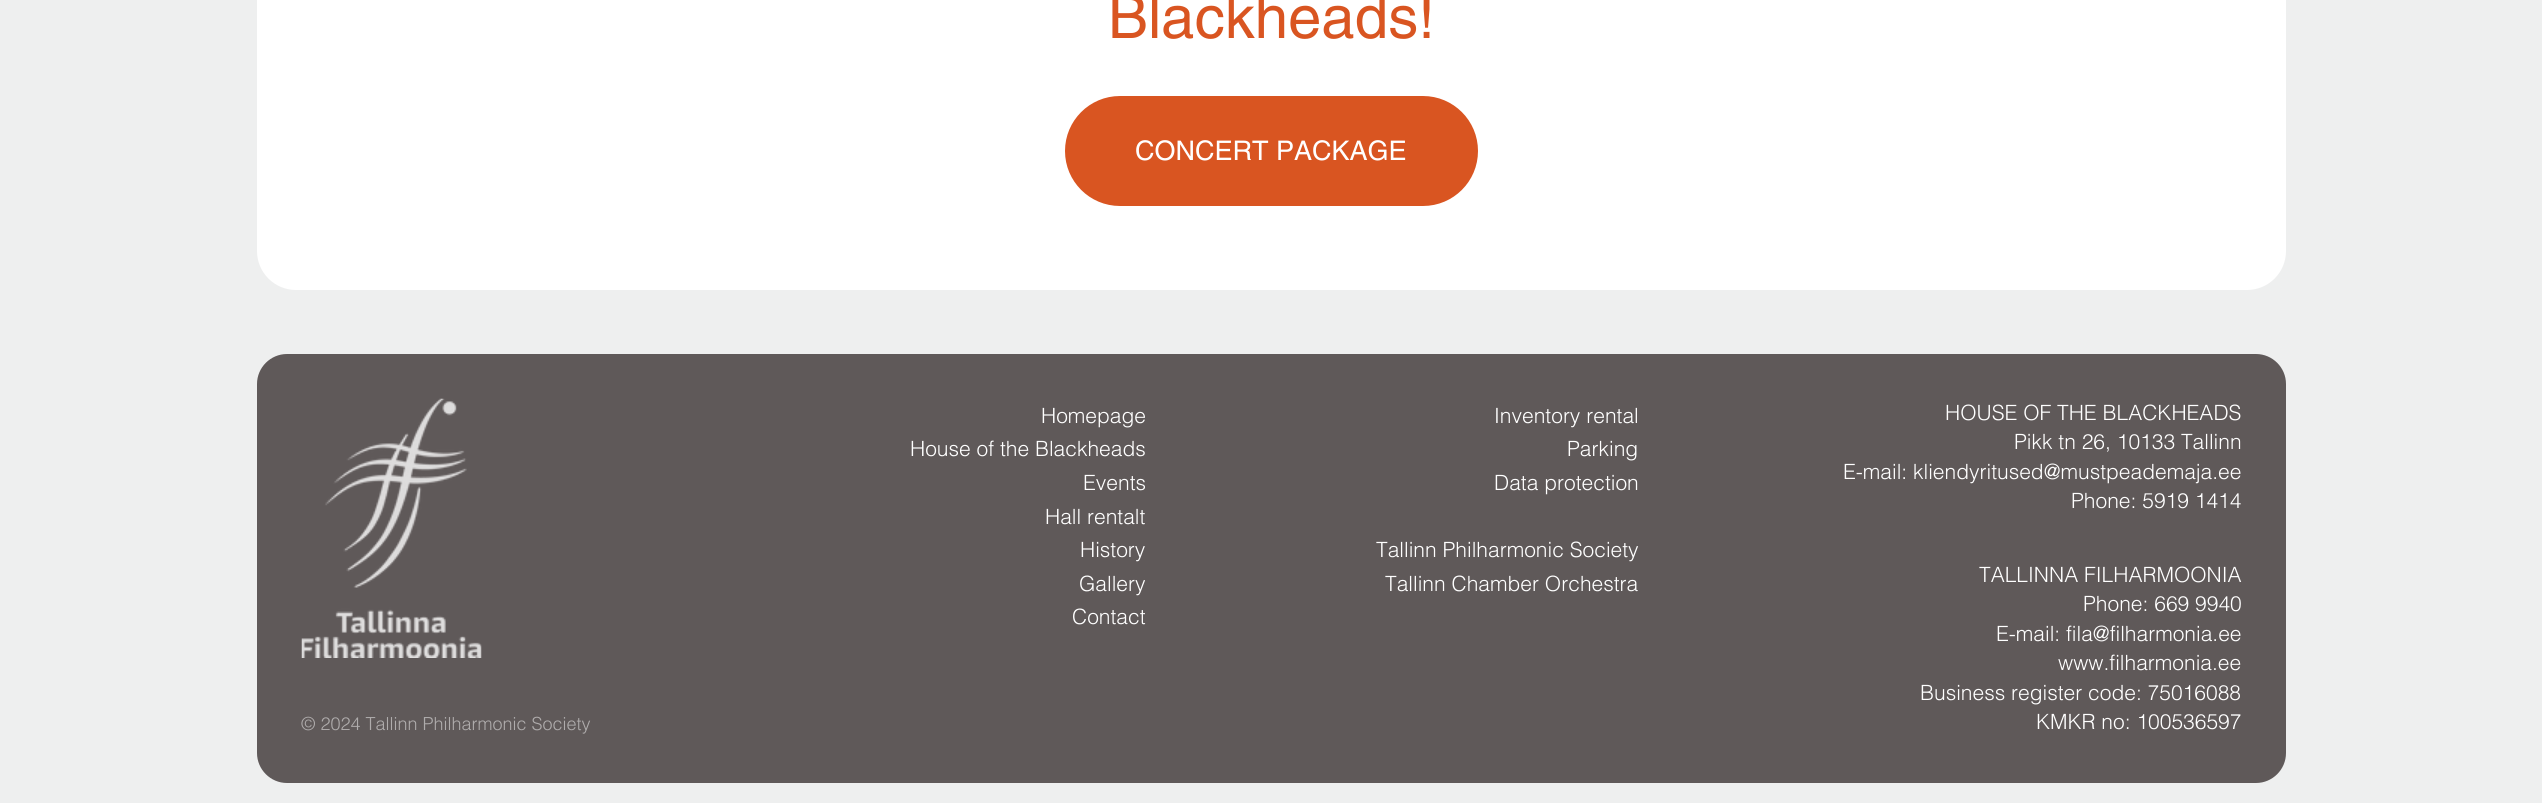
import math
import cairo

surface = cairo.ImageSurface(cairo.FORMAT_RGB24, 2542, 803)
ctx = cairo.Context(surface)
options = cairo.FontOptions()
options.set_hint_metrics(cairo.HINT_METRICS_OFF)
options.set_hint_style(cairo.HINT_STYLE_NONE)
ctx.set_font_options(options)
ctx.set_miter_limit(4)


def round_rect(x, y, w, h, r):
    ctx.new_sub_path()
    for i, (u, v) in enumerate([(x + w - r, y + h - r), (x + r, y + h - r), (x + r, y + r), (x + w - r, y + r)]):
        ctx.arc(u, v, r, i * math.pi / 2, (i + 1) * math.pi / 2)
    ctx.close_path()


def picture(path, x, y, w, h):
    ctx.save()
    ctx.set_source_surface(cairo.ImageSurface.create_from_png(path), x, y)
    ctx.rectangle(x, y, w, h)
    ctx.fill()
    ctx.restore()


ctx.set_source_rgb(0.933, 0.937, 0.937)
ctx.paint()
ctx.set_source_rgb(1, 1, 1)
round_rect(257, -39, 2029, 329, 39)
ctx.fill()
ctx.select_font_face("helvetica")
ctx.set_font_size(60)
ctx.set_source_rgb(0.851, 0.333, 0.129)
ctx.move_to(1108, 38)
ctx.show_text("Blackheads!")
round_rect(1066, 97, 411, 108, 54)
ctx.fill_preserve()
ctx.stroke()
ctx.set_font_size(27)
ctx.set_source_rgb(1, 1, 1)
ctx.move_to(1135, 160)
ctx.show_text("CONCERT PACKAGE")
ctx.set_source_rgb(0.373, 0.349, 0.349)
ctx.rectangle(761, 354, 922, 429)
ctx.fill()
ctx.select_font_face("helvetica Light")
ctx.set_font_size(21)
ctx.set_source_rgb(1, 1, 1)
ctx.move_to(1041, 423)
ctx.show_text("Homepage")
ctx.move_to(910, 456)
ctx.show_text("House of the Blackheads")
ctx.move_to(1083, 490)
ctx.show_text("Events")
ctx.move_to(1045, 524)
ctx.show_text("Hall rentalt")
ctx.move_to(1080, 557)
ctx.show_text("History")
ctx.move_to(1079, 591)
ctx.show_text("Gallery")
ctx.move_to(1072, 624)
ctx.show_text("Contact")
ctx.move_to(1494, 423)
ctx.show_text("Inventory rental")
ctx.move_to(1567, 456)
ctx.show_text("Parking")
ctx.move_to(1494, 490)
ctx.show_text("Data protection")
ctx.move_to(1376, 557)
ctx.show_text("Tallinn Philharmonic Society")
ctx.move_to(1385, 591)
ctx.show_text("Tallinn Chamber Orchestra")
ctx.set_source_rgb(0.373, 0.349, 0.349)
ctx.new_path()
ctx.move_to(1683, 354)
ctx.line_to(2256, 354)
ctx.curve_to(2272.5, 354, 2286, 367.5, 2286, 384)
ctx.line_to(2286, 753)
ctx.curve_to(2286, 769.5, 2272.5, 783, 2256, 783)
ctx.line_to(1683, 783)
ctx.close_path()
ctx.fill()
ctx.set_source_rgb(1, 1, 1)
ctx.move_to(1945, 420)
ctx.show_text("HOUSE OF THE BLACKHEADS")
ctx.move_to(2014, 449)
ctx.show_text("Pikk tn 26, 10133 Tallinn")
ctx.move_to(1843, 479)
ctx.show_text("E-mail: kliendyritused@mustpeademaja.ee")
ctx.move_to(2071, 508)
ctx.show_text("Phone: 5919 1414")
ctx.move_to(1979, 582)
ctx.show_text("TALLINNA FILHARMOONIA")
ctx.move_to(2083, 611)
ctx.show_text("Phone: 669 9940")
ctx.move_to(1996, 641)
ctx.show_text("E-mail: fila@filharmonia.ee")
ctx.move_to(2058, 670)
ctx.show_text("www.filharmonia.ee")
ctx.move_to(1920, 700)
ctx.show_text("Business register code: 75016088")
ctx.move_to(2036, 729)
ctx.show_text("KMKR no: 100536597")
ctx.set_source_rgb(0.373, 0.349, 0.349)
ctx.new_path()
ctx.move_to(287, 354)
ctx.line_to(761, 354)
ctx.line_to(761, 783)
ctx.line_to(287, 783)
ctx.curve_to(270.5, 783, 257, 769.5, 257, 753)
ctx.line_to(257, 384)
ctx.curve_to(257, 367.5, 270.5, 354, 287, 354)
ctx.close_path()
ctx.fill()
picture("img1.png", 301, 398, 181, 260)
ctx.set_font_size(18)
ctx.set_source_rgb(0.686, 0.675, 0.675)
ctx.move_to(301, 730)
ctx.show_text("© 2024 Tallinn Philharmonic Society")
surface.write_to_png("page.png")
